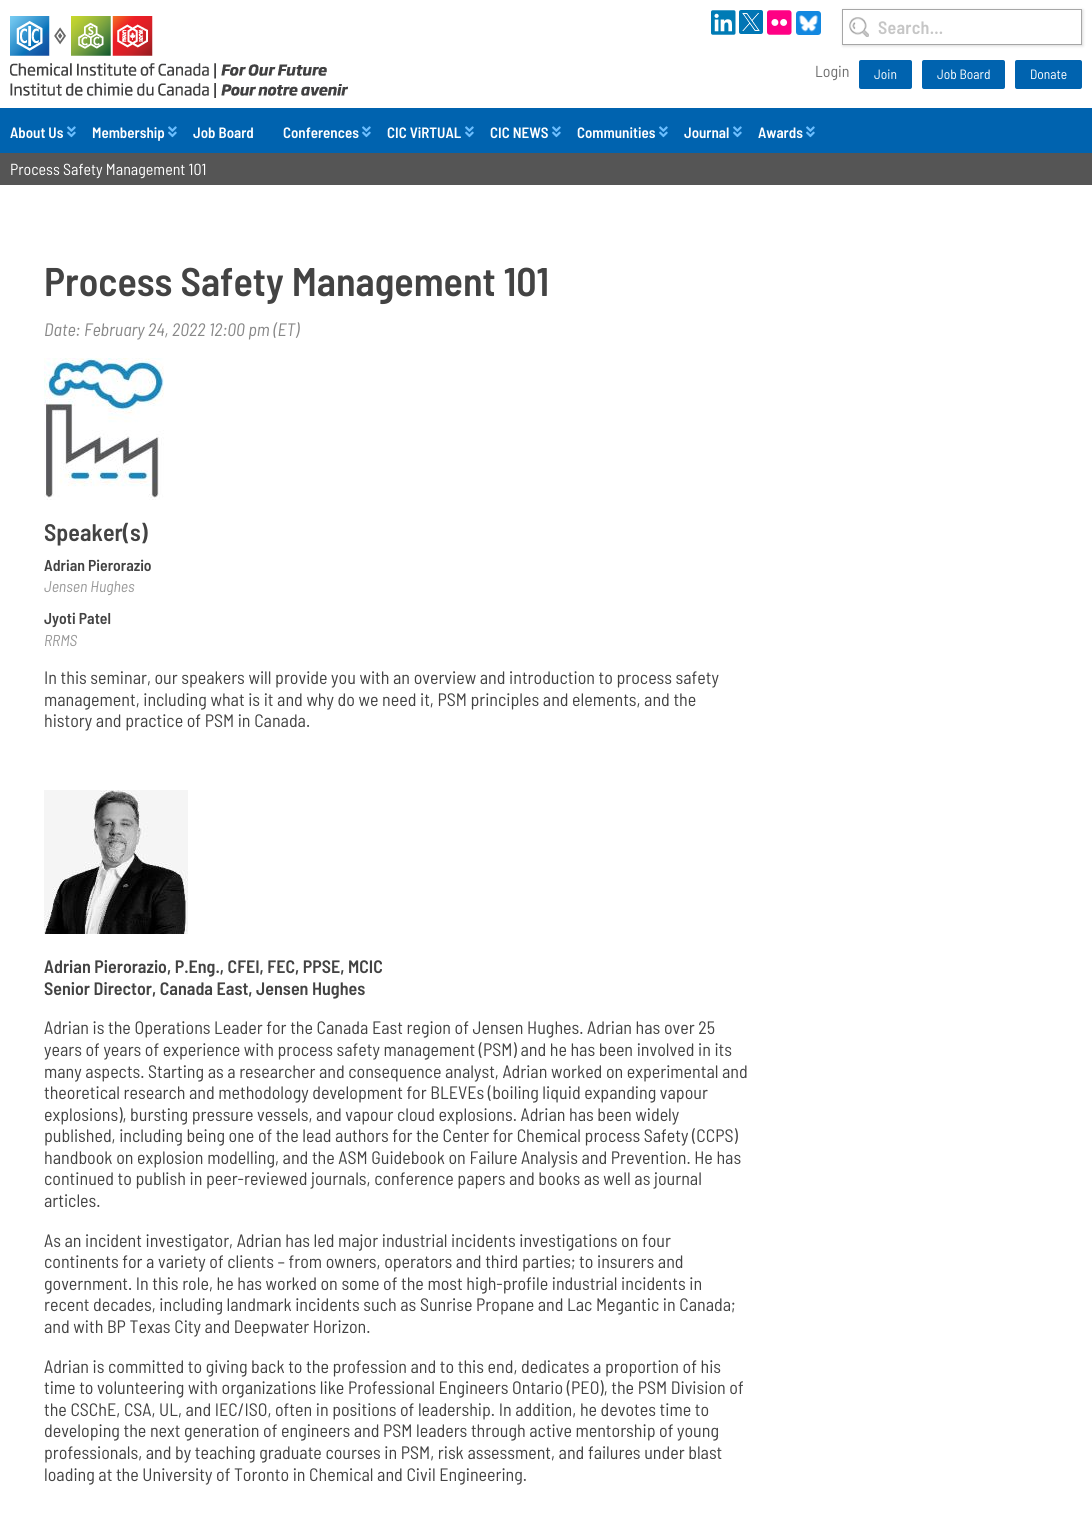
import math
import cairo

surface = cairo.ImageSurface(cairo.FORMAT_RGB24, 1092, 1530)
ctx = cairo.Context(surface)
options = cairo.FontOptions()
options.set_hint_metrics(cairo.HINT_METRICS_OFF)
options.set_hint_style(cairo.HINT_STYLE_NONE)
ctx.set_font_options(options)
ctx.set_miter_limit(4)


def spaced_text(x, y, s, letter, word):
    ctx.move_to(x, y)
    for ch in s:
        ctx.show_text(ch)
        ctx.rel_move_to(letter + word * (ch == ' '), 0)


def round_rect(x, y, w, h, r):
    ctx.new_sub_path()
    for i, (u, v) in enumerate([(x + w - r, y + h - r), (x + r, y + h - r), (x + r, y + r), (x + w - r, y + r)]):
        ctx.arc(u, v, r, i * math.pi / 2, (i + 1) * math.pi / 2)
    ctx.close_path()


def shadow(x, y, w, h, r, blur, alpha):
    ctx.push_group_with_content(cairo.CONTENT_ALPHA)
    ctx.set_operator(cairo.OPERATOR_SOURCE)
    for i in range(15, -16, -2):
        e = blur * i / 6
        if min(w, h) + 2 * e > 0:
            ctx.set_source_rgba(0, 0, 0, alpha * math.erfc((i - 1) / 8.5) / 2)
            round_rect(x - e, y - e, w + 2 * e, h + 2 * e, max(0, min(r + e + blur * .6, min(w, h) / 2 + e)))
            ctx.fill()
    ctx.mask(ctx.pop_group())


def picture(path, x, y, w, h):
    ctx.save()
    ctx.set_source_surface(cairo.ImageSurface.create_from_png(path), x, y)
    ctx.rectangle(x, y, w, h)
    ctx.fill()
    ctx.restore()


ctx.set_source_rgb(1, 1, 1)
ctx.paint()
ctx.set_source_rgb(0, 0.388, 0.686)
ctx.rectangle(0, 108, 1092, 45)
ctx.fill()
picture("img1.png", 10, 16, 338, 82)
picture("img2.png", 711, 10, 25, 25)
ctx.set_source_rgb(0, 0.467, 0.71)
round_rect(739, 10, 24, 24, 2)
ctx.fill()
picture("img3.png", 742, 13, 18, 18)
picture("img4.png", 767, 10, 25, 25)
ctx.set_source_rgb(0.075, 0.533, 0.878)
round_rect(796, 11, 25, 24, 3)
ctx.fill()
picture("img5.png", 799, 15, 19, 17)
ctx.save()
ctx.set_fill_rule(cairo.FILL_RULE_EVEN_ODD)
ctx.new_path()
ctx.move_to(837, 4)
ctx.line_to(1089, 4)
ctx.line_to(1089, 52)
ctx.line_to(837, 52)
ctx.close_path()
ctx.move_to(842, 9)
ctx.line_to(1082, 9)
ctx.line_to(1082, 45)
ctx.line_to(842, 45)
ctx.close_path()
ctx.clip()
ctx.set_source_rgb(0, 0, 0)
shadow(843, 10, 240, 36, 0, 1.5, 0.15)
ctx.restore()
ctx.rectangle(842.5, 9.5, 239, 35)
ctx.set_source_rgb(0.651, 0.651, 0.651)
ctx.set_line_width(1)
ctx.stroke()
picture("img6.png", 849, 17, 20, 20)
ctx.select_font_face("Barlow Semi Condensed SemiBold")
ctx.set_font_size(18)
ctx.set_source_rgb(0.776, 0.776, 0.776)
spaced_text(878, 34, "Search...", 0.25, 0)
ctx.select_font_face("Barlow Semi Condensed")
ctx.set_font_size(16)
ctx.set_source_rgb(0.439, 0.439, 0.439)
ctx.move_to(815, 77)
ctx.show_text("Login")
ctx.set_source_rgb(0, 0.388, 0.686)
round_rect(859, 60, 53, 29, 2)
ctx.fill()
ctx.set_font_size(13.5)
ctx.set_source_rgb(1, 1, 1)
ctx.move_to(874, 79)
ctx.show_text("Join")
ctx.set_source_rgb(0, 0.388, 0.686)
round_rect(922, 60, 83, 29, 2)
ctx.fill()
ctx.set_source_rgb(1, 1, 1)
ctx.move_to(937, 79)
ctx.show_text("Job Board")
ctx.set_source_rgb(0, 0.388, 0.686)
round_rect(1015, 60, 67, 29, 2)
ctx.fill()
ctx.set_source_rgb(1, 1, 1)
ctx.move_to(1030, 79)
ctx.show_text("Donate")
ctx.select_font_face("Barlow Semi Condensed SemiBold")
ctx.set_font_size(15)
ctx.move_to(10, 138)
ctx.show_text("About Us")
picture("img7.png", 67, 126, 9, 12)
ctx.move_to(92, 138)
ctx.show_text("Membership")
picture("img7.png", 168, 126, 9, 12)
ctx.move_to(193, 138)
ctx.show_text("Job Board")
ctx.move_to(283, 138)
ctx.show_text("Conferences")
picture("img7.png", 362, 126, 9, 12)
ctx.move_to(387, 138)
ctx.show_text("CIC ViRTUAL")
picture("img7.png", 465, 126, 9, 12)
ctx.move_to(490, 138)
ctx.show_text("CIC NEWS")
picture("img7.png", 552, 126, 9, 12)
ctx.move_to(577, 138)
ctx.show_text("Communities")
picture("img7.png", 659, 126, 9, 12)
ctx.move_to(684, 138)
ctx.show_text("Journal")
picture("img7.png", 733, 126, 9, 12)
ctx.move_to(758, 138)
ctx.show_text("Awards")
picture("img7.png", 806, 126, 9, 12)
ctx.set_source_rgb(0.333, 0.333, 0.333)
ctx.rectangle(0, 153, 1092, 32)
ctx.fill()
ctx.select_font_face("Barlow Semi Condensed")
ctx.set_font_size(16)
ctx.set_source_rgb(1, 1, 1)
ctx.move_to(10, 175)
ctx.show_text("Process Safety Management 101")
ctx.select_font_face("Barlow Semi Condensed SemiBold")
ctx.set_font_size(40)
ctx.set_source_rgb(0.263, 0.263, 0.263)
ctx.move_to(44, 296)
ctx.show_text("Process Safety Management 101")
ctx.select_font_face("Barlow Semi Condensed", cairo.FONT_SLANT_ITALIC)
ctx.set_font_size(18)
ctx.set_source_rgb(0.529, 0.529, 0.529)
ctx.move_to(44, 336)
ctx.show_text("Date: February 24, 2022 12:00 pm (ET)")
picture("img8.png", 44, 358, 120, 142)
ctx.select_font_face("Barlow Semi Condensed SemiBold")
ctx.set_font_size(24)
ctx.set_source_rgb(0.263, 0.263, 0.263)
ctx.move_to(44, 541)
ctx.show_text("Speaker(s)")
ctx.set_font_size(15.75)
ctx.move_to(44, 571)
ctx.show_text("Adrian Pierorazio")
ctx.select_font_face("Barlow Semi Condensed", cairo.FONT_SLANT_ITALIC)
ctx.set_source_rgb(0.6, 0.6, 0.6)
ctx.move_to(44, 592)
ctx.show_text("Jensen Hughes")
ctx.select_font_face("Barlow Semi Condensed SemiBold")
ctx.set_source_rgb(0.263, 0.263, 0.263)
ctx.move_to(44, 624)
ctx.show_text("Jyoti Patel")
ctx.select_font_face("Barlow Semi Condensed", cairo.FONT_SLANT_ITALIC)
ctx.set_source_rgb(0.6, 0.6, 0.6)
ctx.move_to(44, 646)
ctx.show_text("RRMS")
ctx.select_font_face("Barlow Semi Condensed")
ctx.set_font_size(18)
ctx.set_source_rgb(0.263, 0.263, 0.263)
ctx.move_to(44, 684)
ctx.show_text("In this seminar, our speakers will provide you with an overview and introduction to process safety")
ctx.move_to(44, 706)
ctx.show_text("management, including what is it and why do we need it, PSM principles and elements, and the")
ctx.move_to(44, 727)
ctx.show_text("history and practice of PSM in Canada.")
picture("img9.png", 44, 790, 144, 144)
ctx.select_font_face("Barlow Semi Condensed SemiBold")
ctx.move_to(44, 973)
ctx.show_text("Adrian Pierorazio, P.Eng., CFEI, FEC, PPSE, MCIC")
ctx.move_to(44, 995)
ctx.show_text("Senior Director, Canada East, Jensen Hughes")
ctx.select_font_face("Barlow Semi Condensed")
ctx.move_to(44, 1034)
ctx.show_text("Adrian is the Operations Leader for the Canada East region of Jensen Hughes. Adrian has over 25")
ctx.move_to(44, 1056)
ctx.show_text("years of years of experience with process safety management (PSM) and he has been involved in its")
ctx.move_to(44, 1078)
ctx.show_text("many aspects. Starting as a researcher and consequence analyst, Adrian worked on experimental and")
ctx.move_to(44, 1099)
ctx.show_text("theoretical research and methodology development for BLEVEs (boiling liquid expanding vapour")
ctx.move_to(44, 1121)
ctx.show_text("explosions), bursting pressure vessels, and vapour cloud explosions. Adrian has been widely")
ctx.move_to(44, 1142)
ctx.show_text("published, including being one of the lead authors for the Center for Chemical process Safety (CCPS)")
ctx.move_to(44, 1164)
ctx.show_text("handbook on explosion modelling, and the ASM Guidebook on Failure Analysis and Prevention. He has")
ctx.move_to(44, 1185)
ctx.show_text("continued to publish in peer-reviewed journals, conference papers and books as well as journal")
ctx.move_to(44, 1207)
ctx.show_text("articles.")
ctx.move_to(44, 1247)
ctx.show_text("As an incident investigator, Adrian has led major industrial incidents investigations on four")
ctx.move_to(44, 1268)
ctx.show_text("continents for a variety of clients – from owners, operators and third parties; to insurers and")
ctx.move_to(44, 1290)
ctx.show_text("government. In this role, he has worked on some of the most high-profile industrial incidents in")
ctx.move_to(44, 1311)
ctx.show_text("recent decades, including landmark incidents such as Sunrise Propane and Lac Megantic in Canada;")
ctx.move_to(44, 1333)
ctx.show_text("and with BP Texas City and Deepwater Horizon.")
ctx.move_to(44, 1373)
ctx.show_text("Adrian is committed to giving back to the profession and to this end, dedicates a proportion of his")
ctx.move_to(44, 1394)
ctx.show_text("time to volunteering with organizations like Professional Engineers Ontario (PEO), the PSM Division of")
ctx.move_to(44, 1416)
ctx.show_text("the CSChE, CSA, UL, and IEC/ISO, often in positions of leadership. In addition, he devotes time to")
ctx.move_to(44, 1437)
ctx.show_text("developing the next generation of engineers and PSM leaders through active mentorship of young")
ctx.move_to(44, 1459)
ctx.show_text("professionals, and by teaching graduate courses in PSM, risk assessment, and failures under blast")
ctx.move_to(44, 1481)
ctx.show_text("loading at the University of Toronto in Chemical and Civil Engineering.")
surface.write_to_png("page.png")
